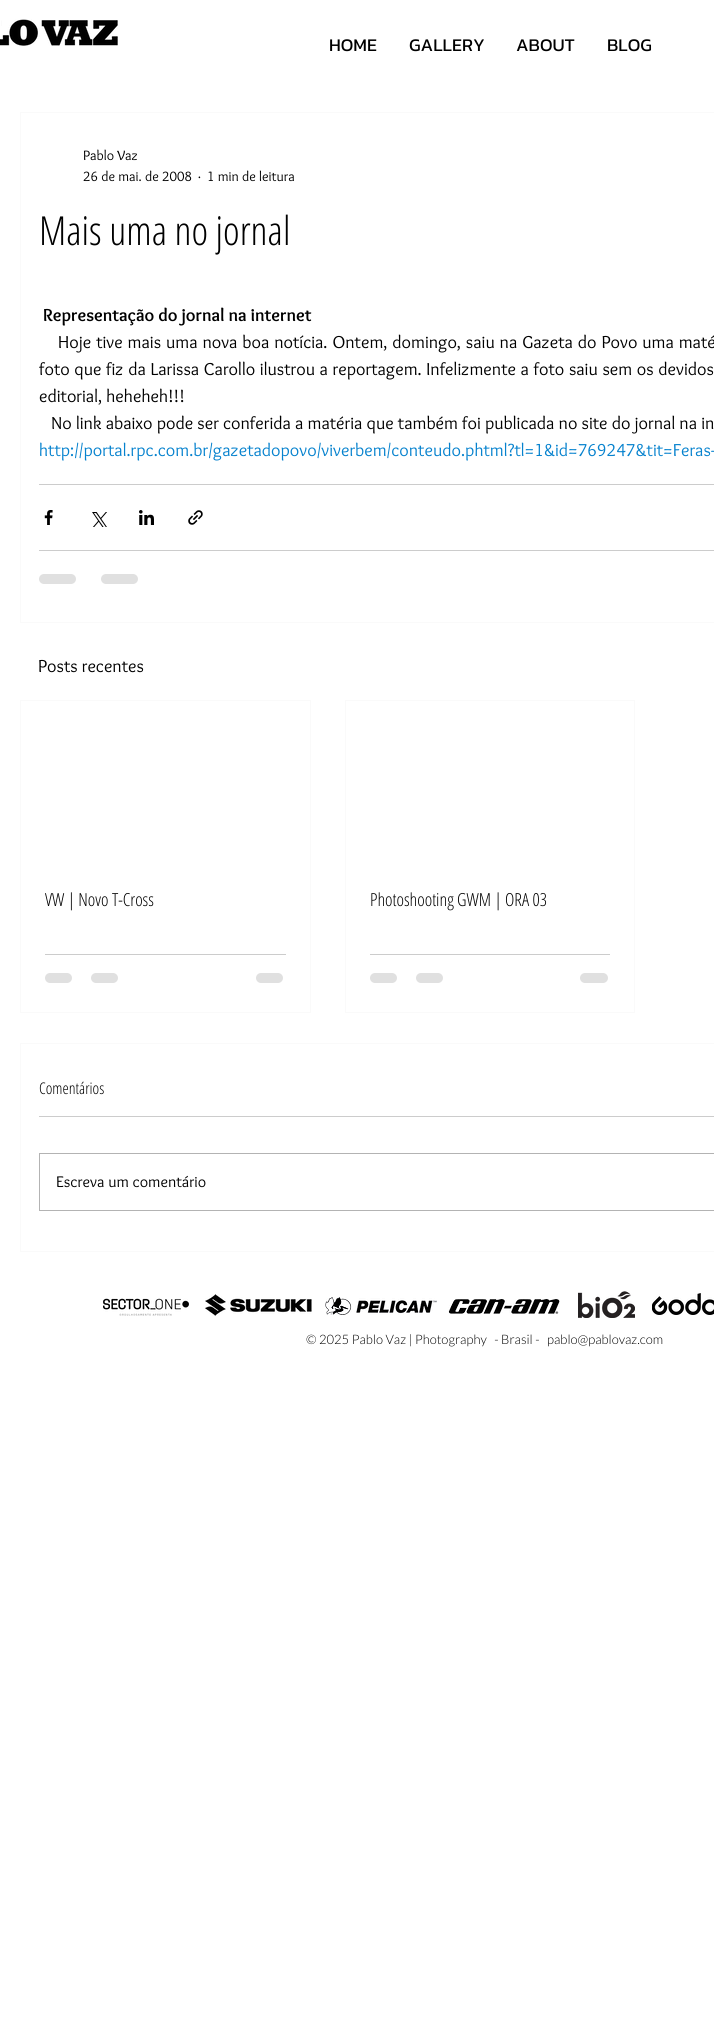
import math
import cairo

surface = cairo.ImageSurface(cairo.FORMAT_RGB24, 714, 2030)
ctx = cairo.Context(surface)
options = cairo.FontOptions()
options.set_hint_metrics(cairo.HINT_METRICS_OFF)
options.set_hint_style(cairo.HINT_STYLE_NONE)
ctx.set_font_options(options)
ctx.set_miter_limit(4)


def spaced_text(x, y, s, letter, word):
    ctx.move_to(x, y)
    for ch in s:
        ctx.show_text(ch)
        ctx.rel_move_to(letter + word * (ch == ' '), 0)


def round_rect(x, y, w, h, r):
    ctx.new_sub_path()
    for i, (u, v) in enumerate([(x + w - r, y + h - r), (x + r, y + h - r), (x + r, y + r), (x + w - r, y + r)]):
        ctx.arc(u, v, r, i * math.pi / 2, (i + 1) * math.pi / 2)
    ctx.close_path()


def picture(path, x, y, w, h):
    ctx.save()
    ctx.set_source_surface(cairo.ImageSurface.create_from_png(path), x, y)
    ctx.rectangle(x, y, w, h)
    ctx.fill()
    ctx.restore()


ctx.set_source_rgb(1, 1, 1)
ctx.paint()
picture("img1.png", 0, 19, 118, 27)
ctx.select_font_face("Kanit")
ctx.set_font_size(18)
ctx.set_source_rgb(0, 0, 0)
ctx.move_to(329, 51)
ctx.show_text("HOME")
ctx.move_to(409, 51)
ctx.show_text("GALLERY")
ctx.move_to(516, 51)
ctx.show_text("ABOUT")
ctx.move_to(607, 51)
ctx.show_text("BLOG")
ctx.rectangle(20.5, 112.5, 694, 510)
ctx.set_source_rgb(0.98, 0.98, 0.98)
ctx.set_line_width(1)
ctx.stroke()
ctx.select_font_face("Overlock")
ctx.set_font_size(14)
ctx.set_source_rgb(0, 0, 0)
ctx.move_to(83, 160)
ctx.show_text("Pablo Vaz")
ctx.move_to(83, 181)
ctx.show_text("26 de mai. de 2008")
ctx.move_to(198, 181)
ctx.show_text("·")
ctx.move_to(207, 181)
ctx.show_text("1 min de leitura")
ctx.select_font_face("Open Sans Condensed Light")
ctx.set_font_size(40)
ctx.move_to(39, 245)
ctx.show_text("Mais uma no jornal")
ctx.select_font_face("Overlock", cairo.FONT_SLANT_NORMAL, cairo.FONT_WEIGHT_BOLD)
ctx.set_font_size(18)
ctx.move_to(43, 321)
ctx.show_text("Representação do jornal na internet")
ctx.select_font_face("Overlock")
spaced_text(58, 348, "Hoje tive mais uma nova boa notícia. Ontem, domingo, saiu na Gazeta do Povo uma maté", 0, 0.75)
spaced_text(39, 375, "foto que fiz da Larissa Carollo ilustrou a reportagem. Infelizmente a foto saiu sem os devidos", 0, 0.5)
ctx.move_to(39, 402)
ctx.show_text("editorial, heheheh!!!")
ctx.move_to(51, 429)
ctx.show_text("No link abaixo pode ser conferida a matéria que também foi publicada no site do jornal na in")
ctx.set_source_rgb(0.027, 0.51, 0.808)
ctx.move_to(39, 456)
ctx.show_text("http://portal.rpc.com.br/gazetadopovo/viverbem/conteudo.phtml?tl=1&id=769247&tit=Feras-")
ctx.set_source_rgb(0.8, 0.8, 0.8)
ctx.rectangle(39, 484, 675, 1)
ctx.fill()
picture("img2.png", 44, 510, 9, 15)
picture("img3.png", 92, 512, 15, 15)
picture("img4.png", 139, 510, 15, 15)
picture("img5.png", 188, 510, 15, 15)
ctx.rectangle(39, 550, 675, 1)
ctx.fill()
ctx.set_source_rgb(0.878, 0.878, 0.878)
round_rect(39, 574, 37, 10, 5)
ctx.fill()
round_rect(101, 574, 37, 10, 5)
ctx.fill()
ctx.set_source_rgb(0, 0, 0)
ctx.move_to(38, 672)
ctx.show_text("Posts recentes")
ctx.rectangle(20.5, 700.5, 290, 312)
ctx.set_source_rgb(0.98, 0.98, 0.98)
ctx.stroke()
ctx.select_font_face("Open Sans Condensed Light")
ctx.set_source_rgb(0, 0, 0)
ctx.move_to(45, 906)
ctx.show_text("VW | Novo T-Cross")
ctx.set_source_rgb(0.8, 0.8, 0.8)
ctx.rectangle(45, 954, 241, 1)
ctx.fill()
ctx.set_source_rgb(0.878, 0.878, 0.878)
round_rect(45, 973, 27, 10, 5)
ctx.fill()
round_rect(91, 973, 27, 10, 5)
ctx.fill()
round_rect(256, 973, 27, 10, 5)
ctx.fill()
ctx.rectangle(345.5, 700.5, 289, 312)
ctx.set_source_rgb(0.98, 0.98, 0.98)
ctx.stroke()
ctx.set_source_rgb(0, 0, 0)
ctx.move_to(370, 906)
ctx.show_text("Photoshooting GWM | ORA 03")
ctx.set_source_rgb(0.8, 0.8, 0.8)
ctx.rectangle(370, 954, 240, 1)
ctx.fill()
ctx.set_source_rgb(0.878, 0.878, 0.878)
round_rect(370, 973, 27, 10, 5)
ctx.fill()
round_rect(416, 973, 27, 10, 5)
ctx.fill()
round_rect(580, 973, 28, 10, 5)
ctx.fill()
ctx.rectangle(20.5, 1043.5, 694, 208)
ctx.set_source_rgb(0.98, 0.98, 0.98)
ctx.stroke()
ctx.set_font_size(16)
ctx.set_source_rgb(0, 0, 0)
ctx.move_to(39, 1094)
ctx.show_text("Comentários")
ctx.set_source_rgb(0.8, 0.8, 0.8)
ctx.rectangle(39, 1116, 675, 1)
ctx.fill()
ctx.rectangle(39.5, 1153.5, 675, 57)
ctx.set_source_rgb(0.702, 0.702, 0.702)
ctx.stroke()
ctx.select_font_face("Overlock")
ctx.set_source_rgb(0, 0, 0)
ctx.move_to(56, 1187)
ctx.show_text("Escreva um comentário")
picture("img6.png", 103, 1298, 86, 18)
picture("img7.png", 205, 1294, 107, 22)
picture("img8.png", 325, 1297, 112, 18)
picture("img9.png", 448, 1299, 112, 15)
picture("img10.png", 578, 1291, 57, 27)
picture("img11.png", 652, 1293, 62, 22)
ctx.select_font_face("Lato Light")
ctx.set_font_size(13)
ctx.move_to(306, 1344)
ctx.show_text("© 2025 Pablo Vaz | Photography   - Brasil -")
ctx.move_to(547, 1344)
ctx.show_text("pablo@pablovaz.com")
surface.write_to_png("page.png")
